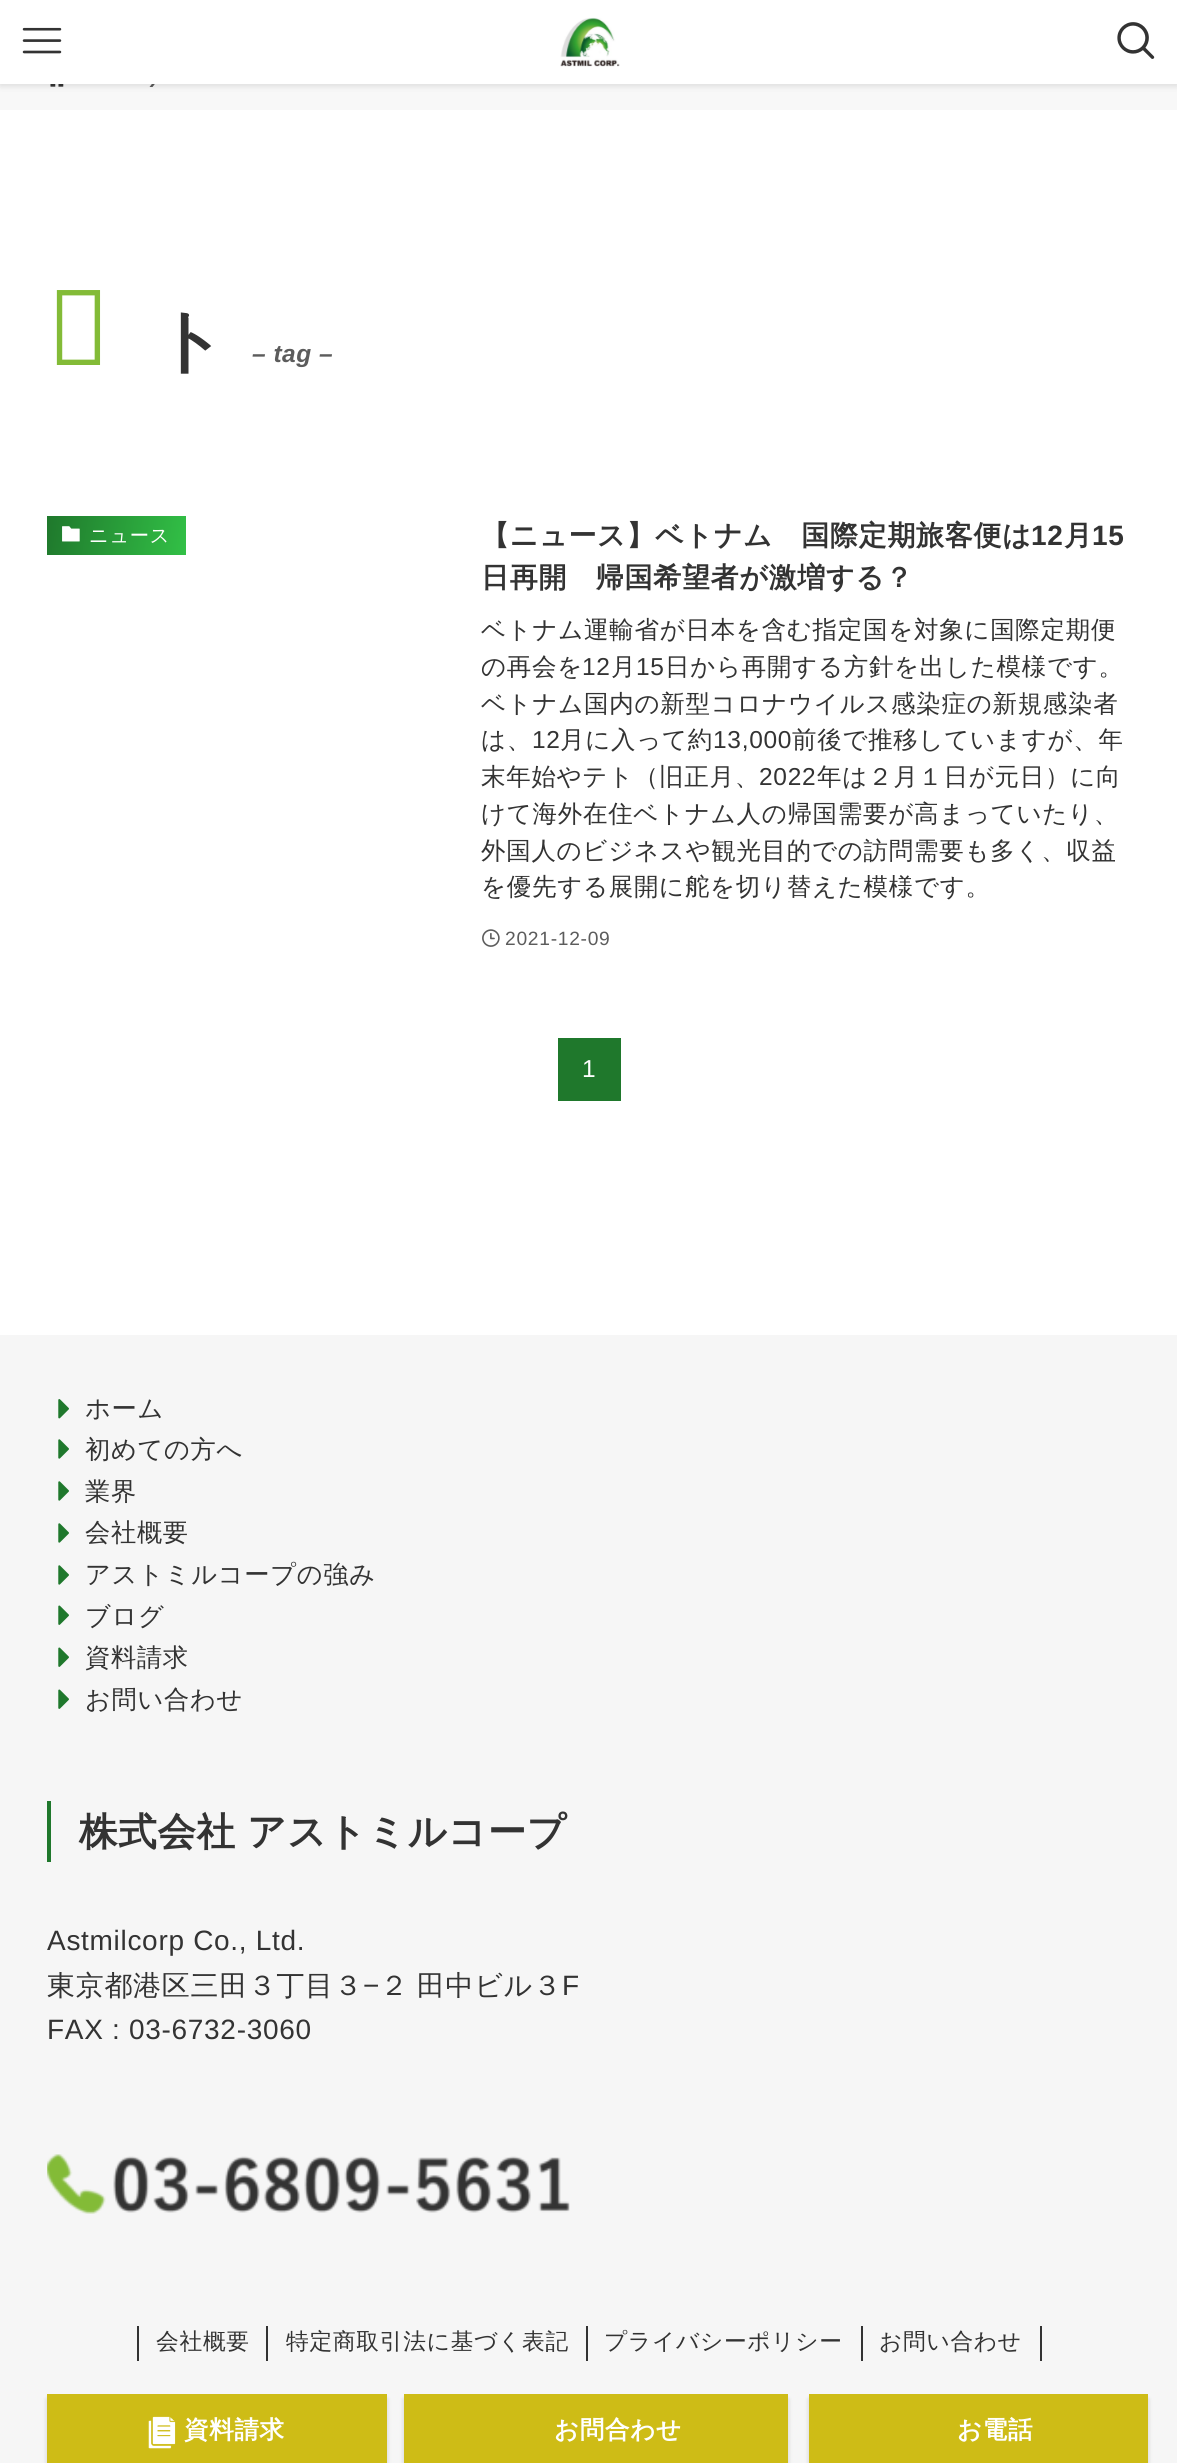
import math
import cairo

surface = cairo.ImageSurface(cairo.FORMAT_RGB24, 1177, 2463)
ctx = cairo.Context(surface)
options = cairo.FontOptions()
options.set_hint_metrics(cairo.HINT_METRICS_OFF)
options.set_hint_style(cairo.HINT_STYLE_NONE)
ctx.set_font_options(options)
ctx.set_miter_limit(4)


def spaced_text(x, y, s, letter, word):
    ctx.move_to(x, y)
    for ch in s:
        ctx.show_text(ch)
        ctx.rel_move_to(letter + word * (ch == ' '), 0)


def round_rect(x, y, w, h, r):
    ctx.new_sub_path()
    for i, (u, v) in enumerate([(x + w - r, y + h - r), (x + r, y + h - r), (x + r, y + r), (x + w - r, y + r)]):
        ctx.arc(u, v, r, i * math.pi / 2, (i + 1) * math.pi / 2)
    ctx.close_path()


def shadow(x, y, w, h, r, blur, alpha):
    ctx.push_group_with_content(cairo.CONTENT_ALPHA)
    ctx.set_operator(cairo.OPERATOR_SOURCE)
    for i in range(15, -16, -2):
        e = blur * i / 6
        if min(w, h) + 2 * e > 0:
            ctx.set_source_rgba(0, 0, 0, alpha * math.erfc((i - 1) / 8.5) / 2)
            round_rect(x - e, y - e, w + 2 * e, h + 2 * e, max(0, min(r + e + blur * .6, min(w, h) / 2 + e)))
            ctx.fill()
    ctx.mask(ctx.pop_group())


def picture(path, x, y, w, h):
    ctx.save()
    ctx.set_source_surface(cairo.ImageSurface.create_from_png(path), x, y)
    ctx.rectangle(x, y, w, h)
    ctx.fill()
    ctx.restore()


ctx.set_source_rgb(1, 1, 1)
ctx.paint()
ctx.set_source_rgb(0.969, 0.969, 0.969)
ctx.rectangle(0, 84, 1177, 26)
ctx.fill()
picture("img4.png", 50, 84, 14, 3)
ctx.set_source_rgb(0.353, 0.353, 0.353)
ctx.new_path()
ctx.move_to(152.5, 73)
ctx.line_to(149.5, 73)
ctx.line_to(155, 80)
ctx.line_to(149.5, 87)
ctx.line_to(152.5, 87)
ctx.line_to(157.5, 80.5)
ctx.close_path()
ctx.fill()
ctx.set_source_rgb(0, 0, 0)
shadow(0, 2, 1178, 84, 0, 3.5, 0.12)
ctx.set_source_rgb(1, 1, 1)
ctx.rectangle(0, 0, 1177, 84)
ctx.fill()
picture("img1.png", 22, 27, 40, 27)
picture("img2.png", 560, 17, 60, 50)
picture("img3.png", 1117, 22, 38, 37)
ctx.select_font_face("Noto Sans Thin")
ctx.set_font_size(105)
ctx.set_source_rgb(0.514, 0.733, 0.216)
spaced_text(47, 365, "テ", 0.7, 0)
ctx.select_font_face("WenQuanYi Zen Hei", cairo.FONT_SLANT_NORMAL, cairo.FONT_WEIGHT_BOLD)
ctx.set_font_size(70)
ctx.set_source_rgb(0.2, 0.2, 0.2)
spaced_text(155, 365, "ト", 0.7, 0)
ctx.select_font_face("Liberation Sans", cairo.FONT_SLANT_ITALIC, cairo.FONT_WEIGHT_BOLD)
ctx.set_font_size(24.5)
ctx.set_source_rgb(0.361, 0.361, 0.361)
spaced_text(252, 362, "– tag –", 0.5, 0)
gradient = cairo.LinearGradient(46, 523, 187, 548)
gradient.add_color_stop_rgba(0, 0.122, 0.471, 0.173, 1)
gradient.add_color_stop_rgba(1, 0.196, 0.753, 0.275, 1)
ctx.set_source(gradient)
ctx.rectangle(47, 516, 139, 39)
ctx.fill()
picture("img5.png", 62, 526, 18, 16)
ctx.select_font_face("WenQuanYi Zen Hei Medium")
ctx.set_font_size(19.25)
ctx.set_source_rgb(1, 1, 1)
spaced_text(89, 542, "ニュース", 0.7, 0)
ctx.select_font_face("WenQuanYi Zen Hei", cairo.FONT_SLANT_NORMAL, cairo.FONT_WEIGHT_BOLD)
ctx.set_font_size(28)
ctx.set_source_rgb(0.2, 0.2, 0.2)
spaced_text(481, 545, "【ニュース】ベトナム　国際定期旅客便は", 0.7, 0)
ctx.select_font_face("Liberation Sans", cairo.FONT_SLANT_NORMAL, cairo.FONT_WEIGHT_BOLD)
spaced_text(1031, 545, "12", 0.7, 0)
ctx.select_font_face("WenQuanYi Zen Hei", cairo.FONT_SLANT_NORMAL, cairo.FONT_WEIGHT_BOLD)
spaced_text(1064, 545, "月", 0.7, 0)
ctx.select_font_face("Liberation Sans", cairo.FONT_SLANT_NORMAL, cairo.FONT_WEIGHT_BOLD)
spaced_text(1092, 545, "15", 0.7, 0)
ctx.select_font_face("WenQuanYi Zen Hei", cairo.FONT_SLANT_NORMAL, cairo.FONT_WEIGHT_BOLD)
spaced_text(481, 587, "日再開　帰国希望者が激増する？", 0.7, 0)
ctx.select_font_face("WenQuanYi Zen Hei Medium")
ctx.set_font_size(24.5)
spaced_text(481, 638, "ベトナム運輸省が日本を含む指定国を対象に国際定期便", 0.7, 0)
spaced_text(481, 675, "の再会を", 0.7, 0)
ctx.select_font_face("Liberation Sans")
spaced_text(582, 675, "12", 0.7, 0)
ctx.select_font_face("WenQuanYi Zen Hei Medium")
spaced_text(611, 675, "月", 0.7, 0)
ctx.select_font_face("Liberation Sans")
spaced_text(636, 675, "15", 0.7, 0)
ctx.select_font_face("WenQuanYi Zen Hei Medium")
spaced_text(665, 675, "日から再開する方針を出した模様です。", 0.7, 0)
spaced_text(481, 712, "ベトナム国内の新型コロナウイルス感染症の新規感染者", 0.7, 0)
spaced_text(481, 748, "は、", 0.7, 0)
ctx.select_font_face("Liberation Sans")
spaced_text(532, 748, "12", 0.7, 0)
ctx.select_font_face("WenQuanYi Zen Hei Medium")
spaced_text(560, 748, "月に入って約", 0.7, 0)
ctx.select_font_face("Liberation Sans")
spaced_text(713, 748, "13,000", 0.7, 0)
ctx.select_font_face("WenQuanYi Zen Hei Medium")
spaced_text(792, 748, "前後で推移していますが、年", 0.7, 0)
spaced_text(481, 785, "末年始やテト（旧正月、", 0.7, 0)
ctx.select_font_face("Liberation Sans")
spaced_text(759, 785, "2022", 0.7, 0)
ctx.select_font_face("WenQuanYi Zen Hei Medium")
spaced_text(817, 785, "年は２月１日が元日）に向", 0.7, 0)
spaced_text(481, 822, "けて海外在住ベトナム人の帰国需要が高まっていたり、", 0.7, 0)
spaced_text(481, 859, "外国人のビジネスや観光目的での訪問需要も多く、収益", 0.7, 0)
spaced_text(481, 895, "を優先する展開に舵を切り替えた模様です。", 0.7, 0)
picture("img6.png", 482, 929, 18, 18)
ctx.select_font_face("Liberation Sans")
ctx.set_font_size(19.25)
ctx.set_source_rgb(0.361, 0.361, 0.361)
spaced_text(505, 945, "2021-12-09", 0.7, 0)
ctx.set_source_rgb(0.122, 0.471, 0.173)
ctx.rectangle(558, 1038, 63, 63)
ctx.fill()
ctx.set_font_size(24.5)
ctx.set_source_rgb(1, 1, 1)
spaced_text(582, 1077, "1", 0.7, 0)
ctx.set_source_rgb(0.961, 0.961, 0.961)
ctx.rectangle(0, 1335, 1177, 1128)
ctx.fill()
picture("img7.png", 58, 1399, 11, 20)
ctx.select_font_face("WenQuanYi Zen Hei Medium")
ctx.set_font_size(25.25)
ctx.set_source_rgb(0.2, 0.2, 0.2)
spaced_text(85, 1417, "ホーム", 0.7, 0)
picture("img8.png", 58, 1439, 11, 20)
spaced_text(85, 1458, "初めての方へ", 0.7, 0)
picture("img8.png", 58, 1481, 11, 20)
spaced_text(85, 1500, "業界", 0.7, 0)
picture("img8.png", 58, 1523, 11, 20)
spaced_text(85, 1541, "会社概要", 0.7, 0)
picture("img8.png", 58, 1565, 11, 20)
spaced_text(85, 1583, "アストミルコープの強み", 0.7, 0)
picture("img9.png", 58, 1605, 11, 20)
spaced_text(85, 1625, "ブログ", 0.7, 0)
picture("img9.png", 58, 1647, 11, 20)
spaced_text(85, 1666, "資料請求", 0.7, 0)
picture("img9.png", 58, 1689, 11, 20)
spaced_text(85, 1708, "お問い合わせ", 0.7, 0)
ctx.set_source_rgb(0.122, 0.471, 0.173)
ctx.rectangle(47, 1801, 4, 61)
ctx.fill()
ctx.select_font_face("WenQuanYi Zen Hei", cairo.FONT_SLANT_NORMAL, cairo.FONT_WEIGHT_BOLD)
ctx.set_font_size(38.5)
ctx.set_source_rgb(0.2, 0.2, 0.2)
spaced_text(79, 1845, "株式会社 アストミルコープ", 0.7, -1)
ctx.select_font_face("Liberation Sans")
ctx.set_font_size(28)
spaced_text(47, 1950, "Astmilcorp Co., Ltd.", 0.7, 0)
ctx.select_font_face("WenQuanYi Zen Hei Medium")
spaced_text(47, 1995, "東京都港区三田３丁目３", 0.7, 0)
ctx.select_font_face("Liberation Sans")
spaced_text(363, 1995, "−", 0.7, 0)
ctx.select_font_face("WenQuanYi Zen Hei Medium")
spaced_text(380, 1995, "２ 田中ビル３", 0.7, -1)
ctx.select_font_face("Liberation Sans")
spaced_text(562, 1995, "F", 0.7, 0)
spaced_text(47, 2039, "FAX : 03-6732-3060", 0.7, 0)
picture("img10.png", 47, 2154, 523, 60)
ctx.rectangle(266, 2326, 2, 35)
ctx.fill()
ctx.rectangle(137, 2326, 2, 35)
ctx.fill()
ctx.select_font_face("WenQuanYi Zen Hei Medium")
ctx.set_font_size(22.75)
spaced_text(156, 2349, "会社概要", 0.7, 0)
ctx.rectangle(586, 2326, 2, 35)
ctx.fill()
spaced_text(286, 2349, "特定商取引法に基づく表記", 0.7, 0)
ctx.rectangle(861, 2326, 2, 35)
ctx.fill()
spaced_text(604, 2349, "プライバシーポリシー", 0.7, 0)
ctx.rectangle(1040, 2326, 2, 35)
ctx.fill()
spaced_text(879, 2349, "お問い合わせ", 0.7, 0)
ctx.set_source_rgb(0, 0, 0)
shadow(47, 2399, 340, 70, 0, 2.5, 0.16)
ctx.set_source_rgb(0.808, 0.737, 0.086)
ctx.rectangle(47, 2394, 340, 69)
ctx.fill()
picture("img11.png", 148, 2416, 28, 33)
ctx.select_font_face("WenQuanYi Zen Hei", cairo.FONT_SLANT_NORMAL, cairo.FONT_WEIGHT_BOLD)
ctx.set_font_size(24.5)
ctx.set_source_rgb(1, 1, 1)
spaced_text(184, 2438, "資料請求", 0.7, 0)
ctx.set_source_rgb(0, 0, 0)
shadow(404, 2399, 384, 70, 0, 2.5, 0.16)
ctx.set_source_rgb(0.808, 0.737, 0.086)
ctx.rectangle(404, 2394, 384, 69)
ctx.fill()
ctx.set_source_rgb(1, 1, 1)
spaced_text(554, 2438, "お問合わせ", 0.7, 0)
ctx.set_source_rgb(0, 0, 0)
shadow(809, 2399, 339, 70, 0, 2.5, 0.16)
ctx.set_source_rgb(0.808, 0.737, 0.086)
ctx.rectangle(809, 2394, 339, 69)
ctx.fill()
ctx.set_source_rgb(1, 1, 1)
spaced_text(957, 2438, "お電話", 0.7, 0)
surface.write_to_png("page.png")
